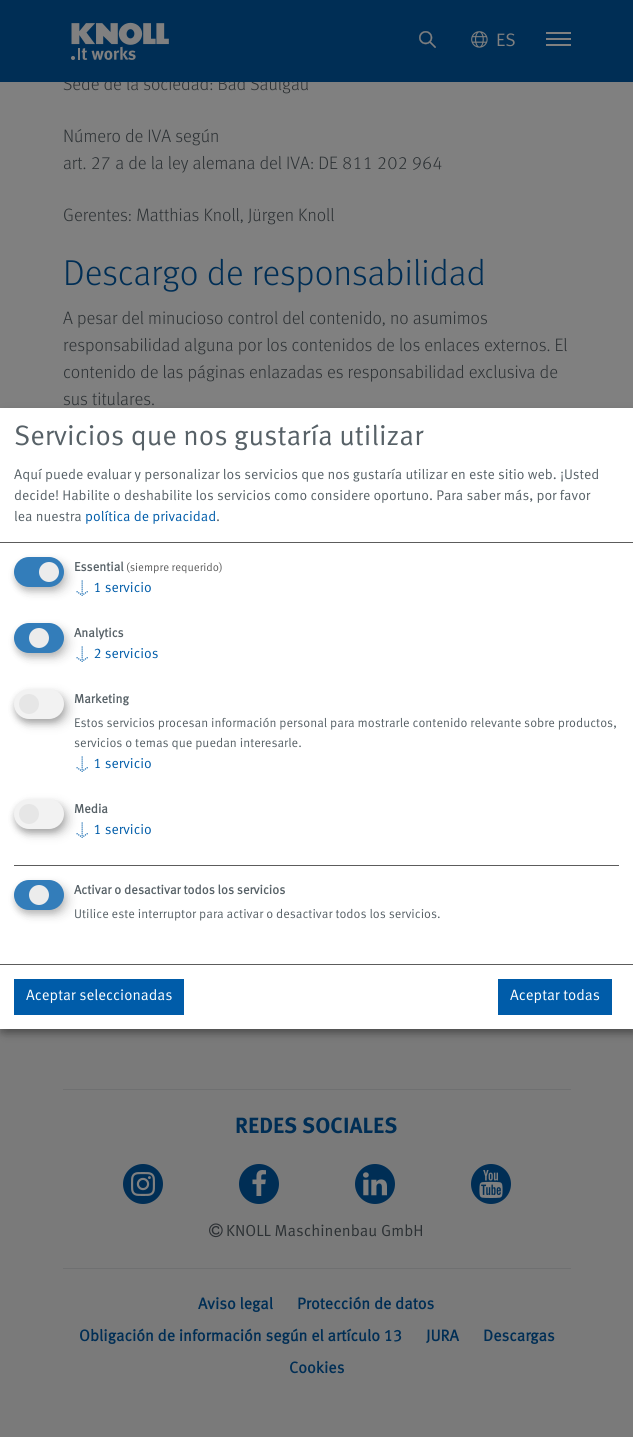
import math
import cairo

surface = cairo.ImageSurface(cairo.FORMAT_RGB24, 633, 1437)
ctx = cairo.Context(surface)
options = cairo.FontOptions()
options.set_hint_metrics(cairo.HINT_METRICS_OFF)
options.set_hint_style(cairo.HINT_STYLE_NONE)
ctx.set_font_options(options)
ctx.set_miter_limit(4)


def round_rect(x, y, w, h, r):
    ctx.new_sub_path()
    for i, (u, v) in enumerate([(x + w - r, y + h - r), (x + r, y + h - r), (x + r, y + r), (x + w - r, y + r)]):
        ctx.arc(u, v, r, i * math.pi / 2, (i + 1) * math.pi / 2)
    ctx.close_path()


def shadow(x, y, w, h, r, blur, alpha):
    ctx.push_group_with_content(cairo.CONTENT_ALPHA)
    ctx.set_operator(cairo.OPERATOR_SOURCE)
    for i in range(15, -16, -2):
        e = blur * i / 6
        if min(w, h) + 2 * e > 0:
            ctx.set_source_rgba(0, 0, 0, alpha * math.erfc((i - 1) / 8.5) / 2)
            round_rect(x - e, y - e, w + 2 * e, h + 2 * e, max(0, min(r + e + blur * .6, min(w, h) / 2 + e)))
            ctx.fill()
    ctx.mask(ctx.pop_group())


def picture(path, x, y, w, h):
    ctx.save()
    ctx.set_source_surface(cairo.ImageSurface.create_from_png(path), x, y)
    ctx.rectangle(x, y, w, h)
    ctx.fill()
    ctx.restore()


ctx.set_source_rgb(0.502, 0.502, 0.502)
ctx.paint()
ctx.select_font_face("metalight")
ctx.set_font_size(18)
ctx.set_source_rgb(0.173, 0.192, 0.204)
ctx.move_to(63, 90)
ctx.show_text("Sede de la sociedad: Bad Saulgau")
ctx.set_source_rgb(0, 0.18, 0.333)
ctx.rectangle(0, 0, 633, 82)
ctx.fill()
picture("img1.png", 71, 22, 98, 38)
picture("img2.png", 419, 31, 17, 17)
picture("img3.png", 471, 31, 17, 17)
ctx.select_font_face("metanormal")
ctx.set_source_rgb(0.502, 0.502, 0.502)
ctx.move_to(496, 46)
ctx.show_text("ES")
ctx.rectangle(546, 32, 25, 2)
ctx.fill()
ctx.rectangle(546, 38, 25, 2)
ctx.fill()
ctx.rectangle(546, 44, 25, 2)
ctx.fill()
ctx.select_font_face("metalight")
ctx.set_source_rgb(0.173, 0.192, 0.204)
ctx.move_to(63, 142)
ctx.show_text("Número de IVA según")
ctx.move_to(63, 169)
ctx.show_text("art. 27 a de la ley alemana del IVA: DE 811 202 964")
ctx.move_to(63, 221)
ctx.show_text("Gerentes: Matthias Knoll, Jürgen Knoll")
ctx.set_font_size(36)
ctx.set_source_rgb(0, 0.18, 0.333)
ctx.move_to(63, 285)
ctx.show_text("Descargo de responsabilidad")
ctx.set_font_size(18)
ctx.set_source_rgb(0.173, 0.192, 0.204)
ctx.move_to(63, 324)
ctx.show_text("A pesar del minucioso control del contenido, no asumimos")
ctx.move_to(63, 351)
ctx.show_text("responsabilidad alguna por los contenidos de los enlaces externos. El")
ctx.move_to(63, 378)
ctx.show_text("contenido de las páginas enlazadas es responsabilidad exclusiva de")
ctx.move_to(63, 405)
ctx.show_text("sus titulares.")
ctx.set_source_rgb(0.478, 0.478, 0.478)
ctx.rectangle(0, 1029, 633, 408)
ctx.fill()
ctx.set_source_rgb(0, 0, 0)
shadow(5, 413, 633, 621, 0, 5, 0.19)
shadow(0, 412, 633, 621, 0, 3, 0.2)
ctx.set_source_rgb(1, 1, 1)
ctx.rectangle(0, 408, 633, 621)
ctx.fill()
ctx.set_source_rgb(0.361, 0.361, 0.361)
ctx.rectangle(0, 542, 633, 1)
ctx.fill()
ctx.select_font_face("metanormal")
ctx.set_font_size(28)
ctx.set_source_rgb(0.341, 0.38, 0.404)
ctx.move_to(14, 445)
ctx.show_text("Servicios que nos gustaría utilizar")
ctx.set_font_size(14)
ctx.move_to(14, 479)
ctx.show_text("Aquí puede evaluar y personalizar los servicios que nos gustaría utilizar en este sitio web. ¡Usted")
ctx.move_to(14, 500)
ctx.show_text("decide! Habilite o deshabilite los servicios como considere oportuno. Para saber más, por favor")
ctx.move_to(14, 521)
ctx.show_text("lea nuestra")
ctx.set_source_rgb(0, 0.361, 0.663)
ctx.move_to(85, 521)
ctx.show_text("política de privacidad")
ctx.set_source_rgb(0.341, 0.38, 0.404)
ctx.move_to(216, 521)
ctx.show_text(".")
ctx.set_source_rgb(0, 0, 0)
shadow(19, 562, 50, 30, 15, 5, 0.15)
ctx.set_source_rgb(0.2, 0.2, 0.2)
shadow(14, 561, 50, 30, 15, 3, 0.2)
ctx.set_source_rgb(0.2, 0.49, 0.729)
round_rect(14, 557, 50, 30, 15)
ctx.fill()
ctx.set_source_rgb(0.922, 0.922, 0.922)
ctx.arc(49, 572, 10, 0, 2 * math.pi)
ctx.fill()
ctx.select_font_face("metanormal", cairo.FONT_SLANT_NORMAL, cairo.FONT_WEIGHT_BOLD)
ctx.set_font_size(12.6)
ctx.set_source_rgb(0.341, 0.38, 0.404)
ctx.move_to(74, 571)
ctx.show_text("Essential")
ctx.select_font_face("metanormal")
ctx.set_font_size(11.25)
ctx.set_source_rgb(0.361, 0.361, 0.361)
ctx.move_to(126, 571)
ctx.show_text("(siempre requerido)")
ctx.set_font_size(14)
ctx.set_source_rgb(0, 0.361, 0.663)
ctx.move_to(74, 592)
ctx.show_text("↓ 1 servicio")
ctx.set_source_rgb(0, 0, 0)
shadow(19, 628, 50, 30, 15, 5, 0.15)
ctx.set_source_rgb(0.2, 0.2, 0.2)
shadow(14, 627, 50, 30, 15, 3, 0.2)
ctx.set_source_rgb(0.2, 0.49, 0.729)
round_rect(14, 623, 50, 30, 15)
ctx.fill()
ctx.set_source_rgb(0.922, 0.922, 0.922)
ctx.arc(39, 638, 10, 0, 2 * math.pi)
ctx.fill()
ctx.select_font_face("metanormal", cairo.FONT_SLANT_NORMAL, cairo.FONT_WEIGHT_BOLD)
ctx.set_font_size(12.6)
ctx.set_source_rgb(0.341, 0.38, 0.404)
ctx.move_to(74, 637)
ctx.show_text("Analytics")
ctx.select_font_face("metanormal")
ctx.set_font_size(14)
ctx.set_source_rgb(0, 0.361, 0.663)
ctx.move_to(74, 658)
ctx.show_text("↓ 2 servicios")
ctx.set_source_rgb(0, 0, 0)
shadow(19, 694, 50, 30, 15, 5, 0.19)
shadow(14, 693, 50, 30, 15, 3, 0.2)
ctx.set_source_rgb(0.949, 0.949, 0.949)
round_rect(14, 689, 50, 30, 15)
ctx.fill()
ctx.set_source_rgb(0.902, 0.902, 0.902)
ctx.arc(29, 704, 10, 0, 2 * math.pi)
ctx.fill()
ctx.select_font_face("metanormal", cairo.FONT_SLANT_NORMAL, cairo.FONT_WEIGHT_BOLD)
ctx.set_font_size(12.6)
ctx.set_source_rgb(0.341, 0.38, 0.404)
ctx.move_to(74, 703)
ctx.show_text("Marketing")
ctx.select_font_face("metanormal")
ctx.move_to(74, 727)
ctx.show_text("Estos servicios procesan información personal para mostrarle contenido relevante sobre productos,")
ctx.move_to(74, 747)
ctx.show_text("servicios o temas que puedan interesarle.")
ctx.set_font_size(14)
ctx.set_source_rgb(0, 0.361, 0.663)
ctx.move_to(74, 768)
ctx.show_text("↓ 1 servicio")
ctx.set_source_rgb(0, 0, 0)
shadow(19, 804, 50, 30, 15, 5, 0.19)
shadow(14, 803, 50, 30, 15, 3, 0.2)
ctx.set_source_rgb(0.949, 0.949, 0.949)
round_rect(14, 799, 50, 30, 15)
ctx.fill()
ctx.set_source_rgb(0.902, 0.902, 0.902)
ctx.arc(29, 814, 10, 0, 2 * math.pi)
ctx.fill()
ctx.select_font_face("metanormal", cairo.FONT_SLANT_NORMAL, cairo.FONT_WEIGHT_BOLD)
ctx.set_font_size(12.6)
ctx.set_source_rgb(0.341, 0.38, 0.404)
ctx.move_to(74, 813)
ctx.show_text("Media")
ctx.select_font_face("metanormal")
ctx.set_font_size(14)
ctx.set_source_rgb(0, 0.361, 0.663)
ctx.move_to(74, 834)
ctx.show_text("↓ 1 servicio")
ctx.set_source_rgb(0.361, 0.361, 0.361)
ctx.rectangle(14, 865, 605, 1)
ctx.fill()
ctx.set_source_rgb(0, 0, 0)
shadow(19, 885, 50, 30, 15, 5, 0.15)
ctx.set_source_rgb(0.2, 0.2, 0.2)
shadow(14, 884, 50, 30, 15, 3, 0.2)
ctx.set_source_rgb(0.2, 0.49, 0.729)
round_rect(14, 880, 50, 30, 15)
ctx.fill()
ctx.set_source_rgb(0.922, 0.922, 0.922)
ctx.arc(39, 895, 10, 0, 2 * math.pi)
ctx.fill()
ctx.select_font_face("metanormal", cairo.FONT_SLANT_NORMAL, cairo.FONT_WEIGHT_BOLD)
ctx.set_font_size(12.6)
ctx.set_source_rgb(0.341, 0.38, 0.404)
ctx.move_to(74, 894)
ctx.show_text("Activar o desactivar todos los servicios")
ctx.select_font_face("metanormal")
ctx.move_to(74, 918)
ctx.show_text("Utilice este interruptor para activar o desactivar todos los servicios.")
ctx.set_source_rgb(0.361, 0.361, 0.361)
ctx.rectangle(0, 964, 633, 1)
ctx.fill()
ctx.set_source_rgb(0, 0.361, 0.663)
ctx.rectangle(14, 979, 170, 36)
ctx.fill()
ctx.set_font_size(15)
ctx.set_source_rgb(1, 1, 1)
ctx.move_to(26, 1000)
ctx.show_text("Aceptar seleccionadas")
ctx.set_source_rgb(0, 0.361, 0.663)
ctx.rectangle(498, 979, 114, 36)
ctx.fill()
ctx.set_source_rgb(1, 1, 1)
ctx.move_to(510, 1000)
ctx.show_text("Aceptar todas")
ctx.set_source_rgb(0.435, 0.439, 0.443)
ctx.rectangle(63, 1089, 508, 1)
ctx.fill()
ctx.select_font_face("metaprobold")
ctx.set_font_size(22)
ctx.set_source_rgb(0, 0.18, 0.333)
ctx.move_to(235, 1133)
ctx.show_text("REDES SOCIALES")
ctx.new_path()
ctx.arc(143, 1184, 20, 0, 2 * math.pi)
ctx.fill()
picture("img4.png", 131, 1172, 24, 24)
ctx.arc(259, 1184, 20, 0, 2 * math.pi)
ctx.fill()
picture("img5.png", 252, 1170, 14, 26)
ctx.arc(375, 1184, 20, 0, 2 * math.pi)
ctx.fill()
picture("img6.png", 363, 1172, 24, 24)
ctx.arc(491, 1184, 20, 0, 2 * math.pi)
ctx.fill()
picture("img7.png", 479, 1170, 24, 28)
picture("img8.png", 209, 1223, 14, 15)
ctx.select_font_face("metanormal")
ctx.set_font_size(16)
ctx.set_source_rgb(0.173, 0.192, 0.204)
ctx.move_to(226, 1236)
ctx.show_text("KNOLL Maschinenbau GmbH")
ctx.set_source_rgb(0.435, 0.439, 0.443)
ctx.rectangle(63, 1268, 508, 1)
ctx.fill()
ctx.select_font_face("metanormal", cairo.FONT_SLANT_NORMAL, cairo.FONT_WEIGHT_BOLD)
ctx.set_source_rgb(0, 0.18, 0.333)
ctx.move_to(198, 1309)
ctx.show_text("Aviso legal")
ctx.move_to(297, 1309)
ctx.show_text("Protección de datos")
ctx.move_to(79, 1341)
ctx.show_text("Obligación de información según el artículo 13")
ctx.move_to(426, 1341)
ctx.show_text("JURA")
ctx.move_to(483, 1341)
ctx.show_text("Descargas")
ctx.move_to(289, 1373)
ctx.show_text("Cookies")
surface.write_to_png("page.png")
